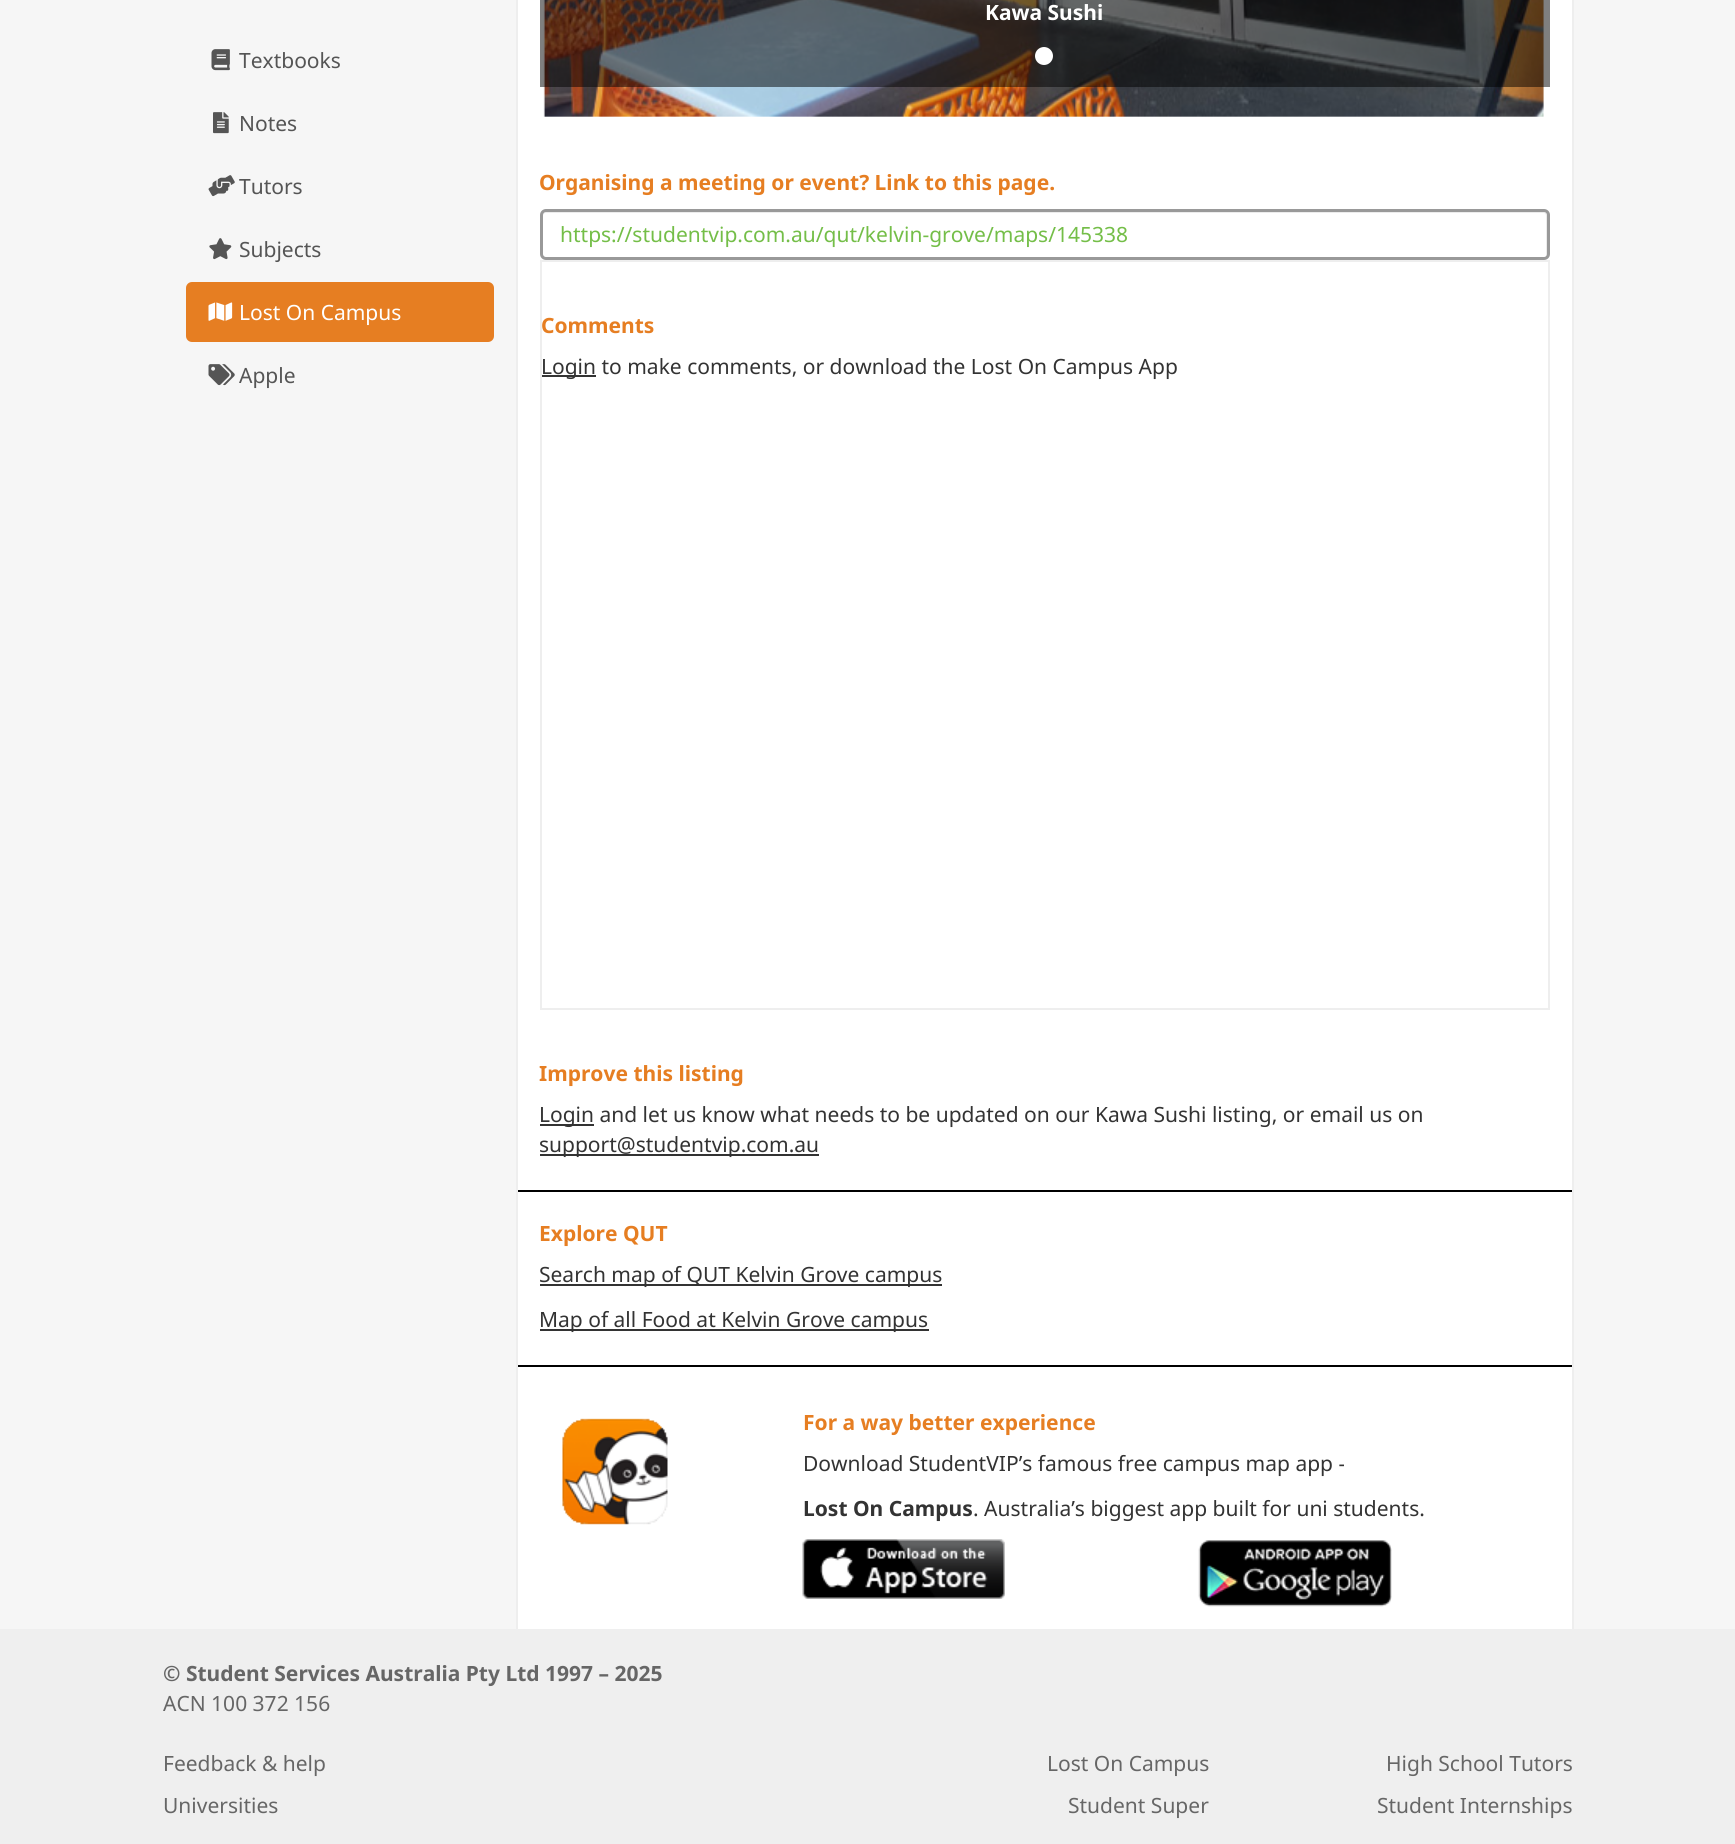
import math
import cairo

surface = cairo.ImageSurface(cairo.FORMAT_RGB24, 1735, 1844)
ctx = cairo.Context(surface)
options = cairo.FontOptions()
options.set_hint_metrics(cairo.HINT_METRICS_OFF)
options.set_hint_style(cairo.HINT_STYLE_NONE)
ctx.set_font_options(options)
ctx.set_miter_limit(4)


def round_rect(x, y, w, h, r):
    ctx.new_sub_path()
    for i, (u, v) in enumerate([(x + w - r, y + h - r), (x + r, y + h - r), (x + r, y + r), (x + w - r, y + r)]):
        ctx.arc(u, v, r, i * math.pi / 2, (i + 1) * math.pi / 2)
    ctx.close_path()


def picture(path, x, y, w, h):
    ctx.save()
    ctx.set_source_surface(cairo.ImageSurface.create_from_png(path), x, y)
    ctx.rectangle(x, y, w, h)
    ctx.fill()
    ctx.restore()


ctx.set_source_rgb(0.961, 0.961, 0.961)
ctx.paint()
picture("img1.png", 211, 49, 19, 22)
ctx.select_font_face("Noto Sans")
ctx.set_font_size(21)
ctx.set_source_rgb(0.333, 0.333, 0.333)
ctx.move_to(239, 68)
ctx.show_text("Textbooks")
picture("img2.png", 213, 112, 16, 22)
ctx.move_to(239, 131)
ctx.show_text("Notes")
picture("img3.png", 208, 175, 27, 22)
ctx.move_to(239, 194)
ctx.show_text("Tutors")
picture("img4.png", 209, 238, 23, 22)
ctx.move_to(239, 257)
ctx.show_text("Subjects")
ctx.set_source_rgb(0.902, 0.494, 0.133)
round_rect(186, 282, 308, 60, 6)
ctx.fill()
picture("img5.png", 208, 302, 25, 19)
ctx.set_source_rgb(1, 1, 1)
ctx.move_to(239, 320)
ctx.show_text("Lost On Campus")
picture("img6.png", 208, 364, 27, 22)
ctx.set_source_rgb(0.333, 0.333, 0.333)
ctx.move_to(239, 383)
ctx.show_text("Apple")
ctx.set_source_rgb(1, 1, 1)
ctx.rectangle(518, 0, 1054, 1629)
ctx.fill()
ctx.set_source_rgb(0.933, 0.933, 0.933)
ctx.rectangle(1572, 0, 2, 1629)
ctx.fill()
ctx.rectangle(516, 0, 2, 1629)
ctx.fill()
picture("img7.png", 543, 0, 1001, 117)
ctx.set_source_rgba(0, 0, 0, 0.5)
ctx.rectangle(540, 0, 1010, 87)
ctx.fill()
ctx.select_font_face("Noto Sans", cairo.FONT_SLANT_NORMAL, cairo.FONT_WEIGHT_BOLD)
ctx.set_source_rgb(1, 1, 1)
ctx.move_to(985, 20)
ctx.show_text("Kawa Sushi")
ctx.new_path()
ctx.arc(1044, 56, 8, 0, 2 * math.pi)
ctx.fill_preserve()
ctx.stroke()
ctx.set_source_rgb(0.902, 0.494, 0.133)
ctx.move_to(539, 190)
ctx.show_text("Organising a meeting or event? Link to this page.")
ctx.set_source_rgb(0.925, 0.925, 0.925)
ctx.new_path()
ctx.move_to(546, 213)
ctx.line_to(1544, 213)
ctx.curve_to(1545, 213, 1546, 214, 1546, 216)
ctx.line_to(1546, 256)
ctx.curve_to(1547, 256, 1547, 255, 1547, 254)
ctx.line_to(1547, 215)
ctx.curve_to(1547, 213, 1546, 212, 1544, 212)
ctx.line_to(546, 212)
ctx.curve_to(544, 212, 543, 213, 543, 215)
ctx.line_to(543, 216)
ctx.curve_to(543, 214, 544, 213, 546, 213)
ctx.close_path()
ctx.fill()
round_rect(541.5, 210.5, 1007, 48, 4.5)
ctx.set_source_rgb(0.6, 0.6, 0.6)
ctx.set_line_width(3)
ctx.stroke()
ctx.select_font_face("Noto Sans")
ctx.set_source_rgb(0.455, 0.745, 0.282)
ctx.move_to(560, 242)
ctx.show_text("https://studentvip.com.au/qut/kelvin-grove/maps/145338")
ctx.rectangle(541, 261, 1008, 748)
ctx.set_source_rgb(0.933, 0.933, 0.933)
ctx.set_line_width(2)
ctx.stroke()
ctx.select_font_face("Noto Sans", cairo.FONT_SLANT_NORMAL, cairo.FONT_WEIGHT_BOLD)
ctx.set_source_rgb(0.902, 0.494, 0.133)
ctx.move_to(541, 333)
ctx.show_text("Comments")
ctx.set_source_rgb(0.2, 0.2, 0.2)
ctx.rectangle(542, 375, 54, 2)
ctx.fill()
ctx.select_font_face("Noto Sans")
ctx.move_to(541, 374)
ctx.show_text("Login to make comments, or download the Lost On Campus App")
ctx.select_font_face("Noto Sans", cairo.FONT_SLANT_NORMAL, cairo.FONT_WEIGHT_BOLD)
ctx.set_source_rgb(0.902, 0.494, 0.133)
ctx.move_to(539, 1081)
ctx.show_text("Improve this listing")
ctx.set_source_rgb(0.2, 0.2, 0.2)
ctx.rectangle(540, 1124, 54, 2)
ctx.fill()
ctx.select_font_face("Noto Sans")
ctx.move_to(539, 1122)
ctx.show_text("Login and let us know what needs to be updated on our Kawa Sushi listing, or email us on")
ctx.rectangle(540, 1154, 279, 2)
ctx.fill()
ctx.move_to(539, 1152)
ctx.show_text("support@studentvip.com.au")
ctx.set_source_rgb(0, 0, 0)
ctx.rectangle(518, 1190, 1054, 2)
ctx.fill()
ctx.select_font_face("Noto Sans", cairo.FONT_SLANT_NORMAL, cairo.FONT_WEIGHT_BOLD)
ctx.set_source_rgb(0.902, 0.494, 0.133)
ctx.move_to(539, 1241)
ctx.show_text("Explore QUT")
ctx.set_source_rgb(0.2, 0.2, 0.2)
ctx.rectangle(540, 1284, 402, 2)
ctx.fill()
ctx.select_font_face("Noto Sans")
ctx.move_to(539, 1282)
ctx.show_text("Search map of QUT Kelvin Grove campus")
ctx.rectangle(540, 1329, 389, 2)
ctx.fill()
ctx.move_to(539, 1327)
ctx.show_text("Map of all Food at Kelvin Grove campus")
ctx.set_source_rgb(0, 0, 0)
ctx.rectangle(518, 1365, 1054, 2)
ctx.fill()
picture("img8.png", 562, 1418, 106, 107)
ctx.select_font_face("Noto Sans", cairo.FONT_SLANT_NORMAL, cairo.FONT_WEIGHT_BOLD)
ctx.set_source_rgb(0.902, 0.494, 0.133)
ctx.move_to(803, 1430)
ctx.show_text("For a way better experience")
ctx.select_font_face("Noto Sans")
ctx.set_source_rgb(0.2, 0.2, 0.2)
ctx.move_to(803, 1471)
ctx.show_text("Download StudentVIP’s famous free campus map app -")
ctx.select_font_face("Noto Sans", cairo.FONT_SLANT_NORMAL, cairo.FONT_WEIGHT_BOLD)
ctx.move_to(803, 1516)
ctx.show_text("Lost On Campus")
ctx.select_font_face("Noto Sans")
ctx.move_to(973, 1516)
ctx.show_text(". Australia’s biggest app built for uni students.")
picture("img9.png", 802, 1539, 203, 60)
picture("img10.png", 1198, 1540, 194, 67)
ctx.set_source_rgb(0.937, 0.937, 0.937)
ctx.rectangle(0, 1629, 1735, 215)
ctx.fill()
ctx.select_font_face("Noto Sans", cairo.FONT_SLANT_NORMAL, cairo.FONT_WEIGHT_BOLD)
ctx.set_source_rgb(0.4, 0.4, 0.4)
ctx.move_to(163, 1681)
ctx.show_text("© Student Services Australia Pty Ltd 1997 – 2025")
ctx.select_font_face("Noto Sans")
ctx.move_to(163, 1711)
ctx.show_text("ACN 100 372 156")
ctx.move_to(163, 1771)
ctx.show_text("Feedback & help")
ctx.move_to(163, 1813)
ctx.show_text("Universities")
ctx.move_to(1047, 1771)
ctx.show_text("Lost On Campus")
ctx.move_to(1068, 1813)
ctx.show_text("Student Super")
ctx.move_to(1386, 1771)
ctx.show_text("High School Tutors")
ctx.move_to(1377, 1813)
ctx.show_text("Student Internships")
surface.write_to_png("page.png")
